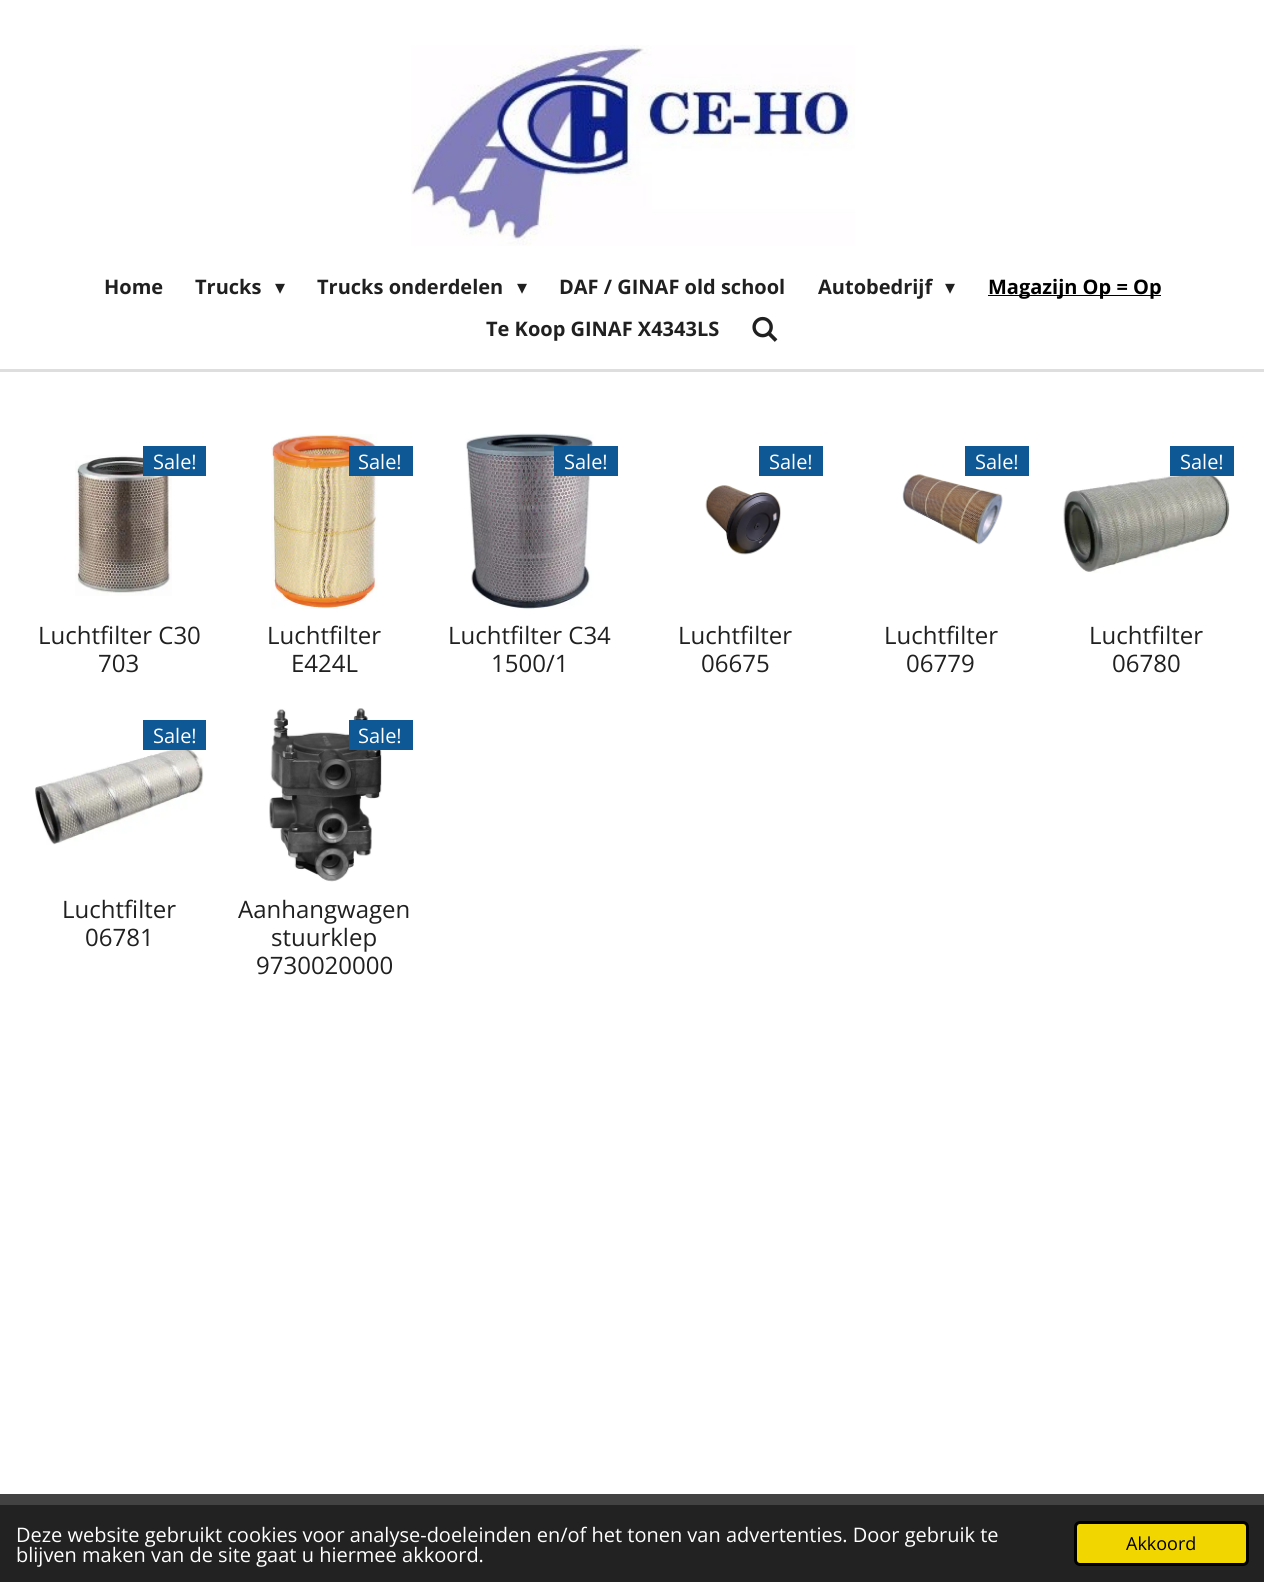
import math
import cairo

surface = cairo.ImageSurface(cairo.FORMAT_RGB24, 1264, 1582)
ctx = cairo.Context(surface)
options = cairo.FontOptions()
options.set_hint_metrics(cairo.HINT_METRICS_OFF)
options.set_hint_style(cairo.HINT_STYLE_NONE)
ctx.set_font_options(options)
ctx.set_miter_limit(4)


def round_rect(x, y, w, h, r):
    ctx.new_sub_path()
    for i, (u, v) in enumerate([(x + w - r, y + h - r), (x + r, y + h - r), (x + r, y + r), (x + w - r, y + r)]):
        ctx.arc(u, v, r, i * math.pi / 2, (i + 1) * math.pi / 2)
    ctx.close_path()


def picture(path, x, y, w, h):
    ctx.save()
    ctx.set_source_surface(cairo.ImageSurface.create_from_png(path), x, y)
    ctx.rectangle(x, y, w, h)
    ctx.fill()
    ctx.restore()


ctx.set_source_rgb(1, 1, 1)
ctx.paint()
picture("img1.png", 411, 45, 444, 201)
ctx.select_font_face("Open Sans", cairo.FONT_SLANT_NORMAL, cairo.FONT_WEIGHT_BOLD)
ctx.set_font_size(20)
ctx.set_source_rgb(0.125, 0.125, 0.125)
ctx.move_to(104, 294)
ctx.show_text("Home")
ctx.move_to(195, 294)
ctx.show_text("Trucks")
ctx.select_font_face("DejaVu Sans")
ctx.move_to(275, 294)
ctx.show_text("▾")
ctx.select_font_face("Open Sans", cairo.FONT_SLANT_NORMAL, cairo.FONT_WEIGHT_BOLD)
ctx.move_to(317, 294)
ctx.show_text("Trucks onderdelen")
ctx.select_font_face("DejaVu Sans")
ctx.move_to(517, 294)
ctx.show_text("▾")
ctx.select_font_face("Open Sans", cairo.FONT_SLANT_NORMAL, cairo.FONT_WEIGHT_BOLD)
ctx.move_to(559, 294)
ctx.show_text("DAF / GINAF old school")
ctx.move_to(818, 294)
ctx.show_text("Autobedrijf")
ctx.select_font_face("DejaVu Sans")
ctx.move_to(945, 294)
ctx.show_text("▾")
ctx.set_source_rgb(0, 0, 0)
ctx.rectangle(988, 295, 173, 1)
ctx.fill()
ctx.select_font_face("Open Sans", cairo.FONT_SLANT_NORMAL, cairo.FONT_WEIGHT_BOLD)
ctx.move_to(988, 294)
ctx.show_text("Magazijn Op = Op")
ctx.set_source_rgb(0.125, 0.125, 0.125)
ctx.move_to(486, 336)
ctx.show_text("Te Koop GINAF X4343LS")
picture("img2.png", 752, 316, 26, 26)
ctx.set_source_rgb(0.871, 0.871, 0.871)
ctx.rectangle(0, 369, 1264, 3)
ctx.fill()
picture("img3.png", 75, 455, 97, 141)
ctx.set_source_rgb(0.055, 0.345, 0.584)
ctx.rectangle(143, 446, 63, 30)
ctx.fill()
ctx.select_font_face("Open Sans")
ctx.set_source_rgb(1, 1, 1)
ctx.move_to(153, 469)
ctx.show_text("Sale!")
ctx.set_font_size(24)
ctx.set_source_rgb(0.125, 0.125, 0.125)
ctx.move_to(38, 644)
ctx.show_text("Luchtfilter C30")
ctx.move_to(98, 672)
ctx.show_text("703")
picture("img4.png", 271, 434, 107, 175)
ctx.set_source_rgb(0.055, 0.345, 0.584)
ctx.rectangle(349, 446, 64, 30)
ctx.fill()
ctx.set_font_size(20)
ctx.set_source_rgb(1, 1, 1)
ctx.move_to(358, 469)
ctx.show_text("Sale!")
ctx.set_font_size(24)
ctx.set_source_rgb(0.125, 0.125, 0.125)
ctx.move_to(267, 644)
ctx.show_text("Luchtfilter")
ctx.move_to(291, 672)
ctx.show_text("E424L")
picture("img5.png", 465, 433, 129, 176)
ctx.set_source_rgb(0.055, 0.345, 0.584)
ctx.rectangle(554, 446, 64, 30)
ctx.fill()
ctx.set_font_size(20)
ctx.set_source_rgb(1, 1, 1)
ctx.move_to(564, 469)
ctx.show_text("Sale!")
ctx.set_font_size(24)
ctx.set_source_rgb(0.125, 0.125, 0.125)
ctx.move_to(448, 644)
ctx.show_text("Luchtfilter C34")
ctx.move_to(491, 672)
ctx.show_text("1500/1")
ctx.set_source_rgb(0.055, 0.345, 0.584)
ctx.rectangle(759, 446, 64, 30)
ctx.fill()
ctx.set_font_size(20)
ctx.set_source_rgb(1, 1, 1)
ctx.move_to(769, 469)
ctx.show_text("Sale!")
picture("img6.png", 705, 485, 76, 70)
ctx.set_font_size(24)
ctx.set_source_rgb(0.125, 0.125, 0.125)
ctx.move_to(678, 644)
ctx.show_text("Luchtfilter")
ctx.move_to(701, 672)
ctx.show_text("06675")
picture("img7.png", 902, 474, 101, 71)
ctx.set_source_rgb(0.055, 0.345, 0.584)
ctx.rectangle(965, 446, 64, 30)
ctx.fill()
ctx.set_font_size(20)
ctx.set_source_rgb(1, 1, 1)
ctx.move_to(975, 469)
ctx.show_text("Sale!")
ctx.set_font_size(24)
ctx.set_source_rgb(0.125, 0.125, 0.125)
ctx.move_to(884, 644)
ctx.show_text("Luchtfilter")
ctx.move_to(906, 672)
ctx.show_text("06779")
picture("img8.png", 1063, 471, 167, 102)
ctx.set_source_rgb(0.055, 0.345, 0.584)
ctx.rectangle(1170, 446, 64, 30)
ctx.fill()
ctx.set_font_size(20)
ctx.set_source_rgb(1, 1, 1)
ctx.move_to(1180, 469)
ctx.show_text("Sale!")
ctx.set_font_size(24)
ctx.set_source_rgb(0.125, 0.125, 0.125)
ctx.move_to(1089, 644)
ctx.show_text("Luchtfilter")
ctx.move_to(1112, 672)
ctx.show_text("06780")
picture("img9.png", 35, 746, 169, 99)
ctx.set_source_rgb(0.055, 0.345, 0.584)
ctx.rectangle(143, 720, 63, 30)
ctx.fill()
ctx.set_font_size(20)
ctx.set_source_rgb(1, 1, 1)
ctx.move_to(153, 743)
ctx.show_text("Sale!")
ctx.set_font_size(24)
ctx.set_source_rgb(0.125, 0.125, 0.125)
ctx.move_to(62, 918)
ctx.show_text("Luchtfilter")
ctx.move_to(85, 946)
ctx.show_text("06781")
picture("img10.png", 269, 708, 113, 174)
ctx.set_source_rgb(0.055, 0.345, 0.584)
ctx.rectangle(349, 720, 64, 30)
ctx.fill()
ctx.set_font_size(20)
ctx.set_source_rgb(1, 1, 1)
ctx.move_to(358, 743)
ctx.show_text("Sale!")
ctx.set_font_size(24)
ctx.set_source_rgb(0.125, 0.125, 0.125)
ctx.move_to(238, 918)
ctx.show_text("Aanhangwagen")
ctx.move_to(271, 946)
ctx.show_text("stuurklep")
ctx.move_to(256, 974)
ctx.show_text("9730020000")
ctx.set_source_rgb(0.259, 0.259, 0.259)
ctx.rectangle(0, 1494, 1264, 11)
ctx.fill()
ctx.set_source_rgb(0.133, 0.133, 0.133)
ctx.rectangle(0, 1505, 1264, 77)
ctx.fill()
ctx.set_font_size(20)
ctx.set_source_rgb(1, 1, 1)
ctx.move_to(16, 1542)
ctx.show_text("Deze website gebruikt cookies voor analyse-doeleinden en/of het tonen van advertenties. Door gebruik te")
ctx.move_to(16, 1562)
ctx.show_text("blijven maken van de site gaat u hiermee akkoord.")
ctx.set_source_rgb(0.945, 0.839, 0)
round_rect(1075.5, 1522.5, 172, 42, 4.5)
ctx.fill_preserve()
ctx.set_source_rgb(0, 0, 0)
ctx.set_line_width(3)
ctx.stroke()
ctx.set_font_size(18)
ctx.move_to(1126, 1550)
ctx.show_text("Akkoord")
surface.write_to_png("page.png")
